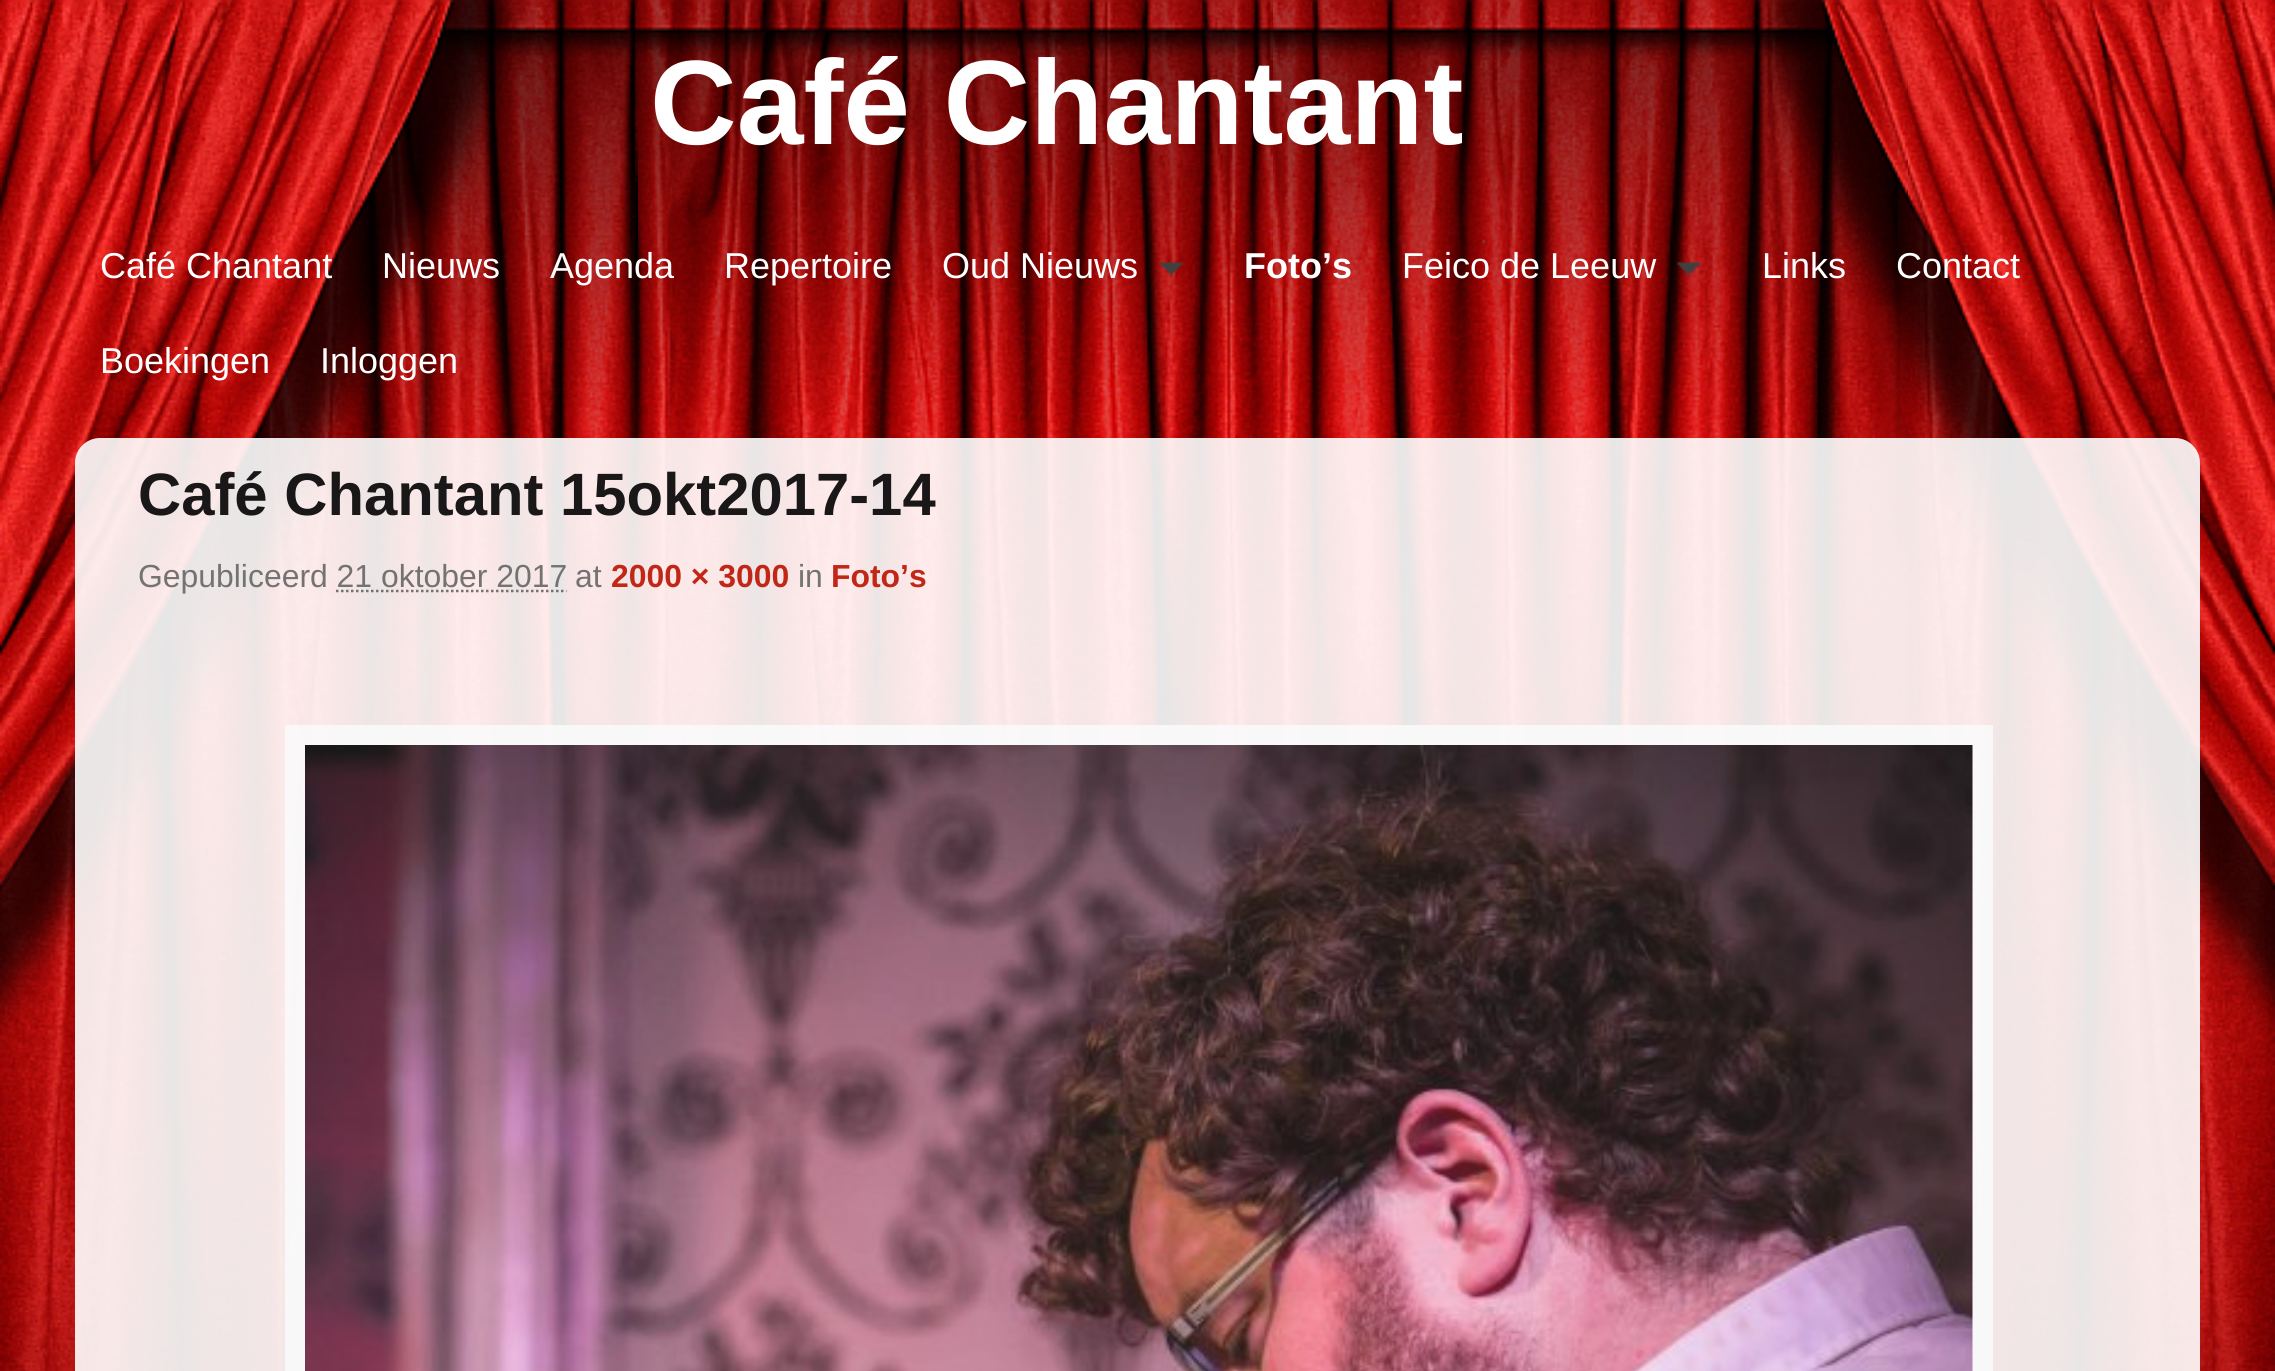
import math
import cairo

surface = cairo.ImageSurface(cairo.FORMAT_RGB24, 2275, 1371)
ctx = cairo.Context(surface)
options = cairo.FontOptions()
options.set_hint_metrics(cairo.HINT_METRICS_OFF)
options.set_hint_style(cairo.HINT_STYLE_NONE)
ctx.set_font_options(options)
ctx.set_miter_limit(4)


def round_rect(x, y, w, h, r):
    ctx.new_sub_path()
    for i, (u, v) in enumerate([(x + w - r, y + h - r), (x + r, y + h - r), (x + r, y + r), (x + w - r, y + r)]):
        ctx.arc(u, v, r, i * math.pi / 2, (i + 1) * math.pi / 2)
    ctx.close_path()


def picture(path, x, y, w, h):
    ctx.save()
    ctx.set_source_surface(cairo.ImageSurface.create_from_png(path), x, y)
    ctx.rectangle(x, y, w, h)
    ctx.fill()
    ctx.restore()


ctx.set_source_rgb(1, 1, 1)
ctx.paint()
picture("img1.png", 0, 0, 2275, 1371)
ctx.select_font_face("Liberation Sans", cairo.FONT_SLANT_NORMAL, cairo.FONT_WEIGHT_BOLD)
ctx.set_font_size(120)
ctx.set_source_rgb(1, 1, 1)
ctx.move_to(650, 144)
ctx.show_text("Café Chantant")
ctx.select_font_face("Liberation Sans")
ctx.set_font_size(36)
ctx.move_to(100, 278)
ctx.show_text("Café Chantant")
ctx.move_to(382, 278)
ctx.show_text("Nieuws")
ctx.move_to(550, 278)
ctx.show_text("Agenda")
ctx.move_to(724, 278)
ctx.show_text("Repertoire")
ctx.move_to(942, 278)
ctx.show_text("Oud Nieuws")
picture("img2.png", 1159, 261, 24, 15)
ctx.select_font_face("Liberation Sans", cairo.FONT_SLANT_NORMAL, cairo.FONT_WEIGHT_BOLD)
ctx.move_to(1244, 278)
ctx.show_text("Foto’s")
ctx.select_font_face("Liberation Sans")
ctx.move_to(1402, 278)
ctx.show_text("Feico de Leeuw")
picture("img3.png", 1677, 261, 23, 15)
ctx.move_to(1762, 278)
ctx.show_text("Links")
ctx.move_to(1896, 278)
ctx.show_text("Contact")
ctx.move_to(100, 373)
ctx.show_text("Boekingen")
ctx.move_to(320, 373)
ctx.show_text("Inloggen")
ctx.set_source_rgba(1, 1, 1, 0.9)
round_rect(75, 438, 2125, 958, 25)
ctx.fill()
ctx.select_font_face("Liberation Sans", cairo.FONT_SLANT_NORMAL, cairo.FONT_WEIGHT_BOLD)
ctx.set_font_size(59.8)
ctx.set_source_rgb(0.098, 0.09, 0.09)
ctx.move_to(138, 515)
ctx.show_text("Café Chantant 15okt2017-14")
ctx.select_font_face("Liberation Sans")
ctx.set_font_size(31.9)
ctx.set_source_rgb(0.455, 0.451, 0.451)
ctx.move_to(138, 587)
ctx.show_text("Gepubliceerd 21 oktober 2017")
ctx.move_to(575, 587)
ctx.show_text("at")
ctx.select_font_face("Liberation Sans", cairo.FONT_SLANT_NORMAL, cairo.FONT_WEIGHT_BOLD)
ctx.set_source_rgb(0.757, 0.149, 0.09)
ctx.move_to(611, 587)
ctx.show_text("2000 × 3000")
ctx.select_font_face("Liberation Sans")
ctx.set_source_rgb(0.455, 0.451, 0.451)
ctx.move_to(798, 587)
ctx.show_text("in")
ctx.select_font_face("Liberation Sans", cairo.FONT_SLANT_NORMAL, cairo.FONT_WEIGHT_BOLD)
ctx.set_source_rgb(0.757, 0.149, 0.09)
ctx.move_to(831, 587)
ctx.show_text("Foto’s")
ctx.new_path()
ctx.move_to(336, 591)
ctx.line_to(566.5, 591)
ctx.set_source_rgba(0.4, 0.4, 0.4, 0.9)
ctx.set_line_width(2.5)
ctx.set_dash([2.5, 2.5])
ctx.stroke()
ctx.set_source_rgba(0.98, 0.98, 0.98, 0.9)
ctx.rectangle(285, 725, 1708, 646)
ctx.fill()
picture("img4.png", 305, 745, 1668, 626)
surface.write_to_png("page.png")
